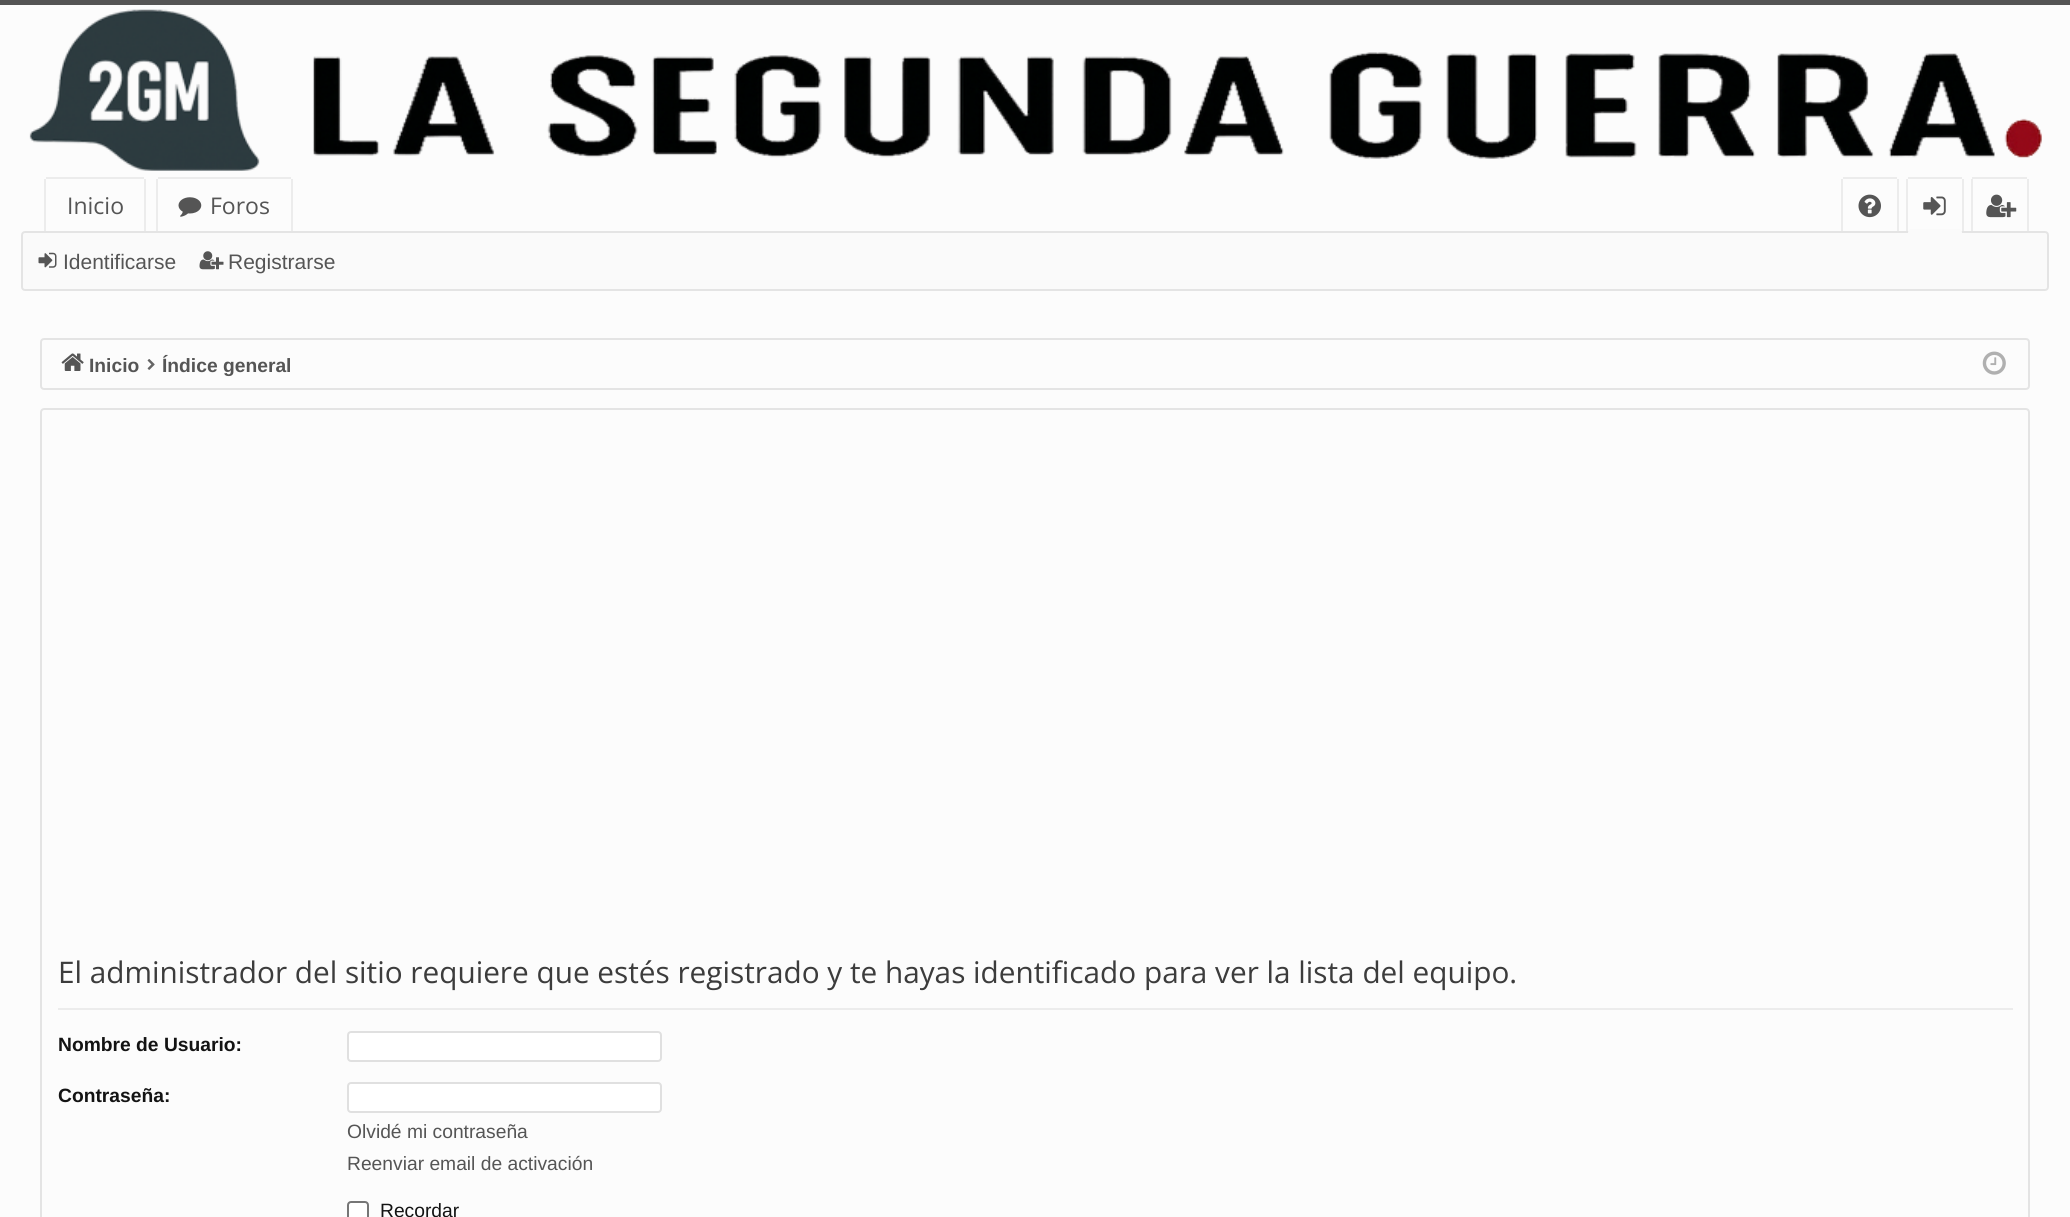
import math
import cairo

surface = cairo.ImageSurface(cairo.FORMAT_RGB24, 2070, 1217)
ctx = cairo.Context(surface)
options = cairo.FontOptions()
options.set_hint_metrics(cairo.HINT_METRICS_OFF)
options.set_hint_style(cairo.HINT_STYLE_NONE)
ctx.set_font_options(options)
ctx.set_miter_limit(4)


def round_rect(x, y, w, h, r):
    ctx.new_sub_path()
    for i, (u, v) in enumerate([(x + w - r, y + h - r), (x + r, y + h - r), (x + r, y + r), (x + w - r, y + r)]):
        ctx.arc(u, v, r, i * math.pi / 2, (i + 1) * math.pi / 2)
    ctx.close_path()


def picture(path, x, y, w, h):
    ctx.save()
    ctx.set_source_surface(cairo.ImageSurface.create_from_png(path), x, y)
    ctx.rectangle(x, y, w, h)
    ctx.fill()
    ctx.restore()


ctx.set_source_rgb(0.988, 0.988, 0.988)
ctx.paint()
ctx.set_source_rgb(0.333, 0.333, 0.333)
ctx.rectangle(0, 0, 2070, 5)
ctx.fill()
picture("img1.png", 29, 9, 2013, 162)
ctx.set_source_rgb(0.922, 0.922, 0.922)
ctx.rectangle(46, 177, 98, 2)
ctx.fill()
ctx.rectangle(144, 179, 2, 54)
ctx.fill()
ctx.rectangle(44, 179, 2, 54)
ctx.fill()
ctx.select_font_face("Open Sans")
ctx.set_font_size(23)
ctx.set_source_rgb(0.333, 0.333, 0.333)
ctx.move_to(67, 214)
ctx.show_text("Inicio")
ctx.set_source_rgb(0.922, 0.922, 0.922)
ctx.rectangle(158, 177, 133, 2)
ctx.fill()
ctx.rectangle(291, 179, 2, 54)
ctx.fill()
ctx.rectangle(156, 179, 2, 54)
ctx.fill()
picture("img2.png", 178, 197, 24, 20)
ctx.set_source_rgb(0.333, 0.333, 0.333)
ctx.move_to(210, 214)
ctx.show_text("Foros")
ctx.set_source_rgb(0.922, 0.922, 0.922)
ctx.rectangle(1843, 177, 54, 2)
ctx.fill()
ctx.rectangle(1897, 179, 2, 54)
ctx.fill()
ctx.rectangle(1841, 179, 2, 54)
ctx.fill()
picture("img3.png", 1858, 194, 23, 24)
ctx.rectangle(1908, 177, 54, 2)
ctx.fill()
ctx.rectangle(1962, 179, 2, 54)
ctx.fill()
ctx.rectangle(1906, 179, 2, 54)
ctx.fill()
picture("img4.png", 1923, 196, 23, 20)
ctx.rectangle(2027, 179, 2, 54)
ctx.fill()
ctx.rectangle(1971, 179, 2, 54)
ctx.fill()
ctx.set_source_rgb(0.98, 0.98, 0.98)
round_rect(22, 232, 2026, 58, 3)
ctx.fill_preserve()
ctx.set_source_rgb(0.894, 0.894, 0.894)
ctx.stroke()
ctx.set_source_rgb(0.98, 0.98, 0.98)
ctx.new_path()
ctx.move_to(1911.5, 229)
ctx.line_to(1958.5, 229)
ctx.curve_to(1960.5, 229, 1962, 230.5, 1962, 232.5)
ctx.line_to(1962, 236)
ctx.line_to(1908, 236)
ctx.line_to(1908, 232.5)
ctx.curve_to(1908, 230.5, 1909.5, 229, 1911.5, 229)
ctx.close_path()
ctx.fill()
ctx.set_source_rgb(0.922, 0.922, 0.922)
ctx.rectangle(1972, 177, 55, 2)
ctx.fill()
picture("img5.png", 1986, 194, 31, 24)
picture("img6.png", 38, 252, 19, 16)
ctx.select_font_face("Liberation Sans")
ctx.set_font_size(21)
ctx.set_source_rgb(0.333, 0.333, 0.333)
ctx.move_to(63, 269)
ctx.show_text("Identificarse")
picture("img7.png", 199, 251, 25, 19)
ctx.move_to(228, 269)
ctx.show_text("Registrarse")
round_rect(41, 339, 1988, 50, 3)
ctx.set_source_rgb(0.894, 0.894, 0.894)
ctx.stroke()
picture("img8.png", 61, 353, 23, 18)
ctx.select_font_face("Liberation Sans", cairo.FONT_SLANT_NORMAL, cairo.FONT_WEIGHT_BOLD)
ctx.set_font_size(19.25)
ctx.set_source_rgb(0.333, 0.333, 0.333)
ctx.move_to(89, 372)
ctx.show_text("Inicio")
picture("img9.png", 147, 359, 8, 11)
ctx.move_to(162, 372)
ctx.show_text("Índice general")
picture("img10.png", 1982, 351, 24, 24)
ctx.new_path()
ctx.move_to(44, 409)
ctx.line_to(2026, 409)
ctx.curve_to(2027.5, 409, 2029, 410.5, 2029, 412)
ctx.line_to(2029, 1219)
ctx.curve_to(2029, 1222.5, 2026.5, 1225, 2023, 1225)
ctx.line_to(47, 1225)
ctx.curve_to(43.5, 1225, 41, 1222.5, 41, 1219)
ctx.line_to(41, 412)
ctx.curve_to(41, 410.5, 42.5, 409, 44, 409)
ctx.close_path()
ctx.set_source_rgb(0.894, 0.894, 0.894)
ctx.stroke()
ctx.set_source_rgb(0.922, 0.922, 0.922)
ctx.rectangle(58, 1008, 1955, 2)
ctx.fill()
ctx.select_font_face("Open Sans")
ctx.set_font_size(29.75)
ctx.set_source_rgb(0.235, 0.235, 0.235)
ctx.move_to(58, 983)
ctx.show_text("El administrador del sitio requiere que estés registrado y te hayas identificado para ver la lista del equipo.")
ctx.select_font_face("Liberation Sans", cairo.FONT_SLANT_NORMAL, cairo.FONT_WEIGHT_BOLD)
ctx.set_font_size(19.25)
ctx.set_source_rgb(0.078, 0.078, 0.078)
ctx.move_to(58, 1051)
ctx.show_text("Nombre de Usuario:")
ctx.set_source_rgb(1, 1, 1)
round_rect(348, 1032, 313, 29, 3)
ctx.fill_preserve()
ctx.set_source_rgb(0.878, 0.878, 0.878)
ctx.stroke()
ctx.set_source_rgb(0.078, 0.078, 0.078)
ctx.move_to(58, 1102)
ctx.show_text("Contraseña:")
ctx.set_source_rgb(1, 1, 1)
round_rect(348, 1083, 313, 29, 3)
ctx.fill_preserve()
ctx.set_source_rgb(0.878, 0.878, 0.878)
ctx.stroke()
ctx.select_font_face("Liberation Sans")
ctx.set_source_rgb(0.333, 0.333, 0.333)
ctx.move_to(347, 1138)
ctx.show_text("Olvidé mi contraseña")
ctx.move_to(347, 1170)
ctx.show_text("Reenviar email de activación")
ctx.set_source_rgb(1, 1, 1)
round_rect(348, 1202, 20, 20, 3)
ctx.fill_preserve()
ctx.set_source_rgb(0.463, 0.463, 0.463)
ctx.stroke()
ctx.set_source_rgb(0.078, 0.078, 0.078)
ctx.move_to(380, 1217)
ctx.show_text("Recordar")
surface.write_to_png("page.png")
